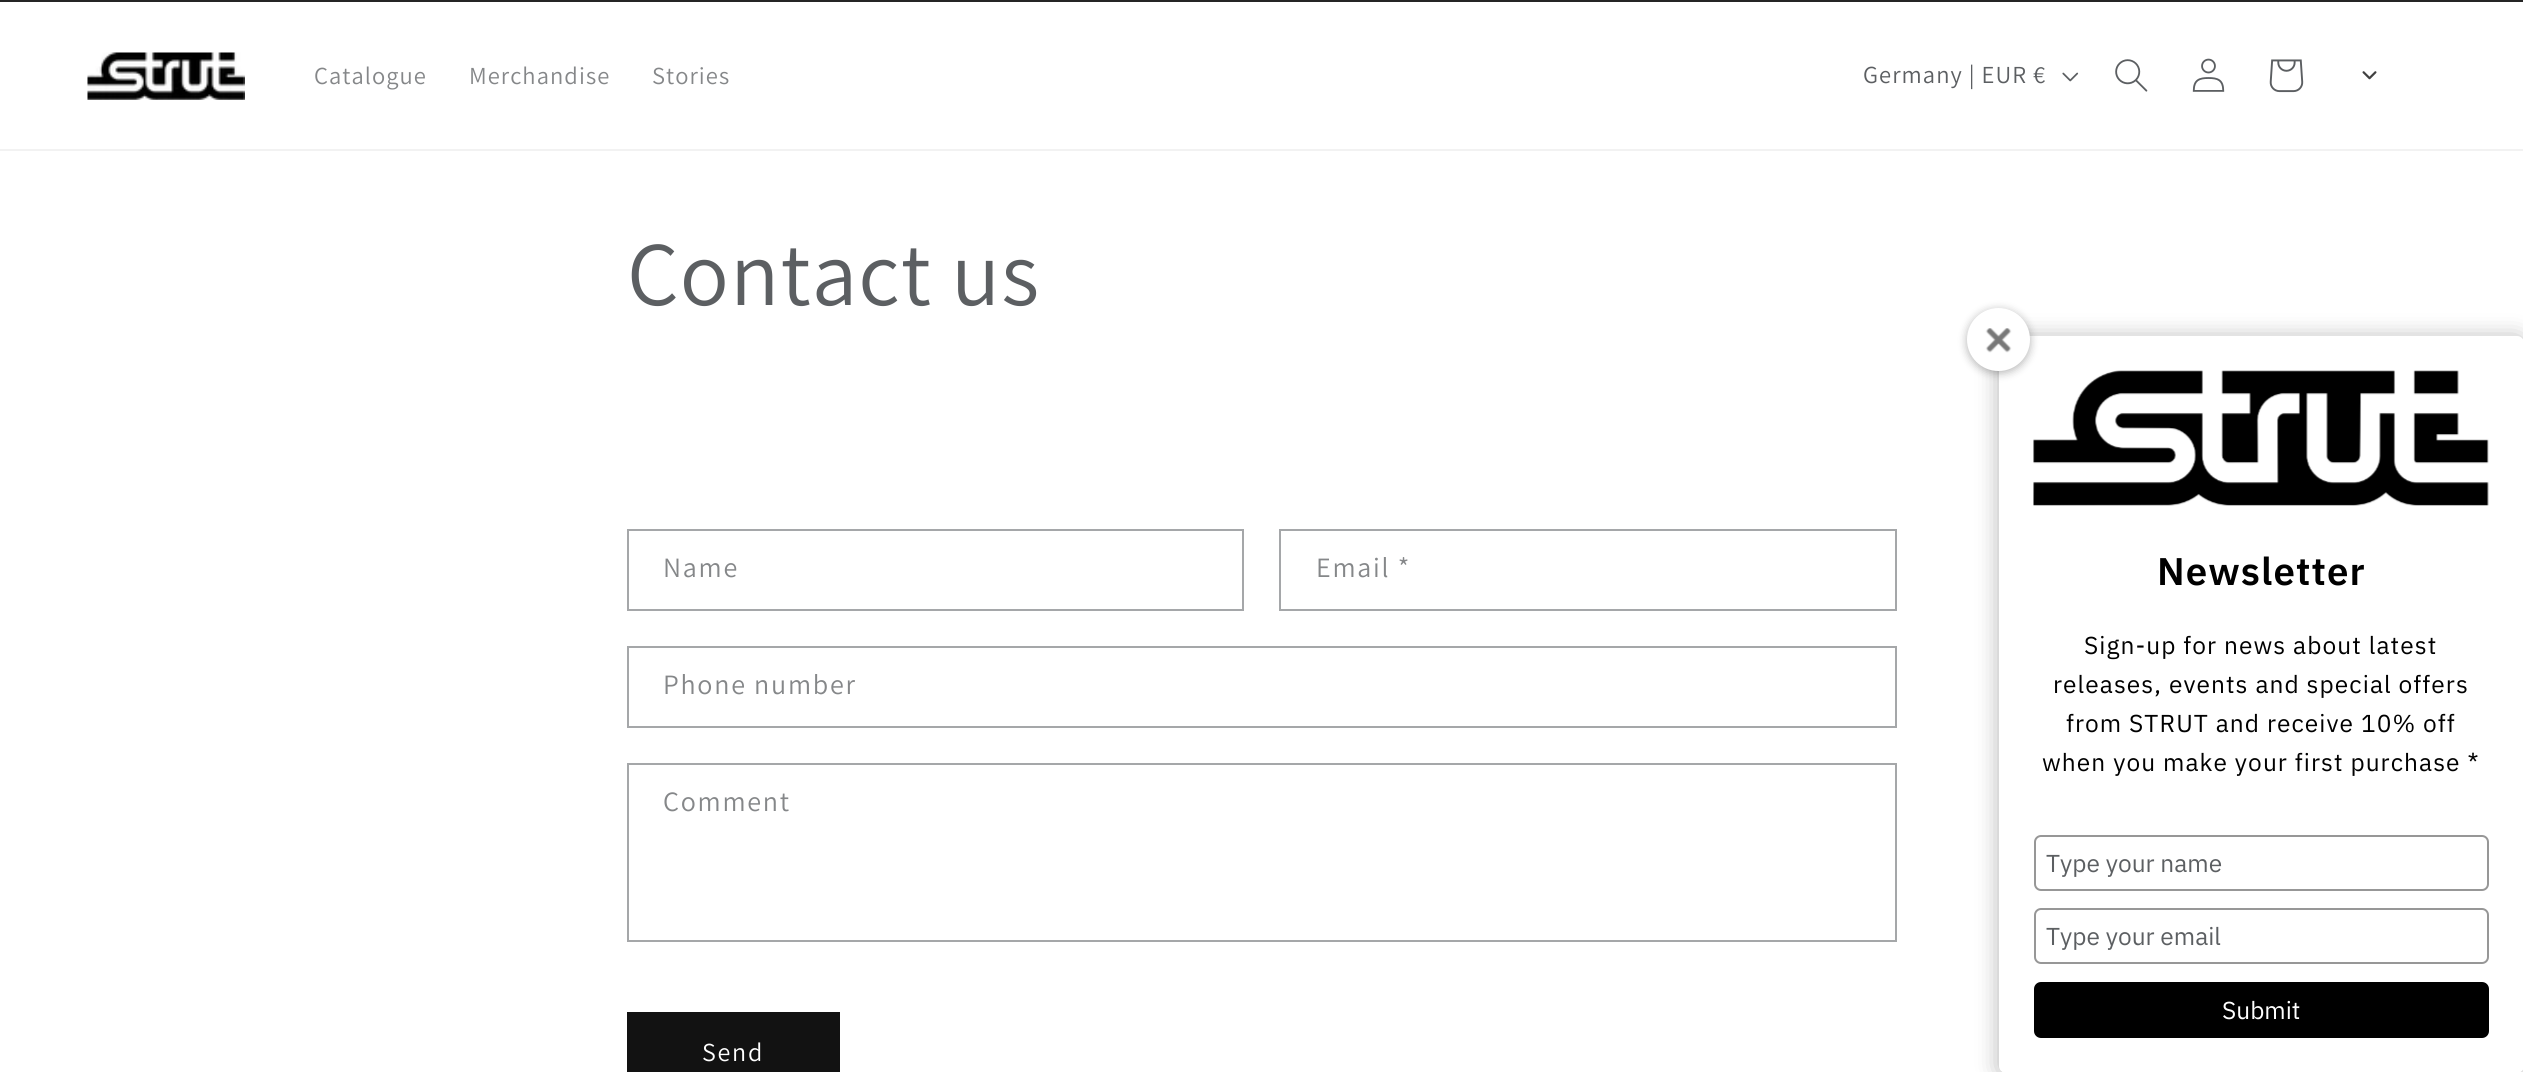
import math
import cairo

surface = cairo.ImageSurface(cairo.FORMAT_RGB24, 2523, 1072)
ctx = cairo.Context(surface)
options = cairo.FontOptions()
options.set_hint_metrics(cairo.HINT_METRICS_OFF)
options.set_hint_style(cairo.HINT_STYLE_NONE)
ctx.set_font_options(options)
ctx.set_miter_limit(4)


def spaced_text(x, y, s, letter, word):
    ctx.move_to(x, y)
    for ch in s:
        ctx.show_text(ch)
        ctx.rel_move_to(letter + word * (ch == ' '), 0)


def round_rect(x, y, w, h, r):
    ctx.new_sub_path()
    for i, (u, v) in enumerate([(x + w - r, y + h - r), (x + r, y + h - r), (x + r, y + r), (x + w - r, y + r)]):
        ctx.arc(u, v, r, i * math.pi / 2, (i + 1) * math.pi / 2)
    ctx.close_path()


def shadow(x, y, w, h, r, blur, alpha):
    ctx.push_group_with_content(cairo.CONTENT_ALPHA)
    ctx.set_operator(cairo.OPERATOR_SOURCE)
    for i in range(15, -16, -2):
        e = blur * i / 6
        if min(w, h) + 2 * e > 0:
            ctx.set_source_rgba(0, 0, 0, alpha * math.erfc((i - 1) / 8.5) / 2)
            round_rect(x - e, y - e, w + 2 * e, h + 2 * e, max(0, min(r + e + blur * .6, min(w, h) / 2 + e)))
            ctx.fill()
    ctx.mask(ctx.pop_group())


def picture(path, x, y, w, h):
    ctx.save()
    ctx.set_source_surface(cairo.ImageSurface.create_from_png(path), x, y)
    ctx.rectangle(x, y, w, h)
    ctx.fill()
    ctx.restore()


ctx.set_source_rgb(1, 1, 1)
ctx.paint()
ctx.set_source_rgb(0.145, 0.145, 0.145)
ctx.rectangle(0, 0, 2523, 2)
ctx.fill()
ctx.set_source_rgb(0.949, 0.949, 0.949)
ctx.rectangle(0, 149, 2523, 2)
ctx.fill()
picture("img1.png", 87, 52, 158, 48)
ctx.select_font_face("Assistant")
ctx.set_font_size(24.5)
ctx.set_source_rgb(0.522, 0.529, 0.537)
spaced_text(314, 84, "Catalogue", 1.05, 0)
spaced_text(469, 84, "Merchandise", 1.05, 0)
spaced_text(652, 84, "Stories", 1.05, 0)
ctx.set_source_rgb(0.361, 0.373, 0.384)
spaced_text(1863, 83, "Germany | EUR €", 1.05, 0)
picture("img2.png", 2062, 72, 17, 10)
picture("img3.png", 2115, 59, 33, 33)
picture("img4.png", 2192, 58, 33, 34)
picture("img5.png", 2269, 59, 35, 34)
picture("img6.png", 2362, 71, 15, 9)
ctx.set_font_size(91)
spaced_text(627, 305, "Contact us", 1.05, 0)
ctx.rectangle(628, 530, 615, 80)
ctx.set_source_rgb(0.647, 0.655, 0.663)
ctx.stroke()
ctx.set_font_size(28)
ctx.set_source_rgb(0.522, 0.529, 0.537)
spaced_text(663, 577, "Name", 1.75, 0)
ctx.rectangle(1280, 530, 616, 80)
ctx.set_source_rgb(0.647, 0.655, 0.663)
ctx.stroke()
ctx.set_source_rgb(0.522, 0.529, 0.537)
spaced_text(1316, 577, "Email *", 1.75, 0)
ctx.rectangle(628, 647, 1268, 80)
ctx.set_source_rgb(0.647, 0.655, 0.663)
ctx.stroke()
ctx.set_source_rgb(0.522, 0.529, 0.537)
spaced_text(663, 694, "Phone number", 1.75, 0)
ctx.rectangle(628, 764, 1268, 177)
ctx.set_source_rgb(0.647, 0.655, 0.663)
ctx.stroke()
ctx.set_source_rgb(0.522, 0.529, 0.537)
spaced_text(663, 811, "Comment", 1.75, 0)
ctx.set_source_rgb(0.071, 0.071, 0.071)
ctx.rectangle(627, 1012, 213, 60)
ctx.fill()
ctx.set_font_size(26)
ctx.set_source_rgb(1, 1, 1)
spaced_text(702, 1061, "Send", 1.75, 0)
ctx.set_source_rgb(0, 0, 0)
shadow(1999, 338, 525, 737, 7, 11.5, 0.3)
ctx.set_source_rgb(1, 1, 1)
round_rect(1999, 336, 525, 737, 7)
ctx.fill()
picture("img8.png", 2033, 370, 456, 136)
ctx.set_source_rgb(0, 0, 0)
shadow(1967, 310, 63, 63, 31.5, 4.5, 0.3)
ctx.set_source_rgb(1, 1, 1)
ctx.arc(1998.5, 339.5, 31.5, 0, 2 * math.pi)
ctx.fill()
picture("img7.png", 1985, 328, 27, 25)
ctx.select_font_face("IBM Plex Sans SemiBold")
ctx.set_font_size(38.5)
ctx.set_source_rgb(0, 0, 0)
spaced_text(2157, 585, "Newsletter", 1.05, 0)
ctx.select_font_face("IBM Plex Sans")
ctx.set_font_size(24.5)
spaced_text(2084, 654, "Sign-up for news about latest", 1.05, 0)
spaced_text(2053, 693, "releases, events and special offers", 1.05, 0)
spaced_text(2066, 732, "from STRUT and receive 10% off", 1.05, 0)
spaced_text(2042, 771, "when you make your first purchase *", 1.05, 0)
round_rect(2035, 836, 453, 54, 6)
ctx.set_source_rgb(0.592, 0.592, 0.592)
ctx.stroke()
ctx.set_source_rgb(0.361, 0.373, 0.384)
ctx.move_to(2046, 872)
ctx.show_text("Type your name")
round_rect(2035, 909, 453, 54, 6)
ctx.set_source_rgb(0.592, 0.592, 0.592)
ctx.stroke()
ctx.set_source_rgb(0.361, 0.373, 0.384)
ctx.move_to(2046, 945)
ctx.show_text("Type your email")
ctx.set_source_rgb(0, 0, 0)
round_rect(2034, 982, 455, 56, 7)
ctx.fill()
ctx.set_source_rgb(1, 1, 1)
ctx.move_to(2222, 1019)
ctx.show_text("Submit")
surface.write_to_png("page.png")
